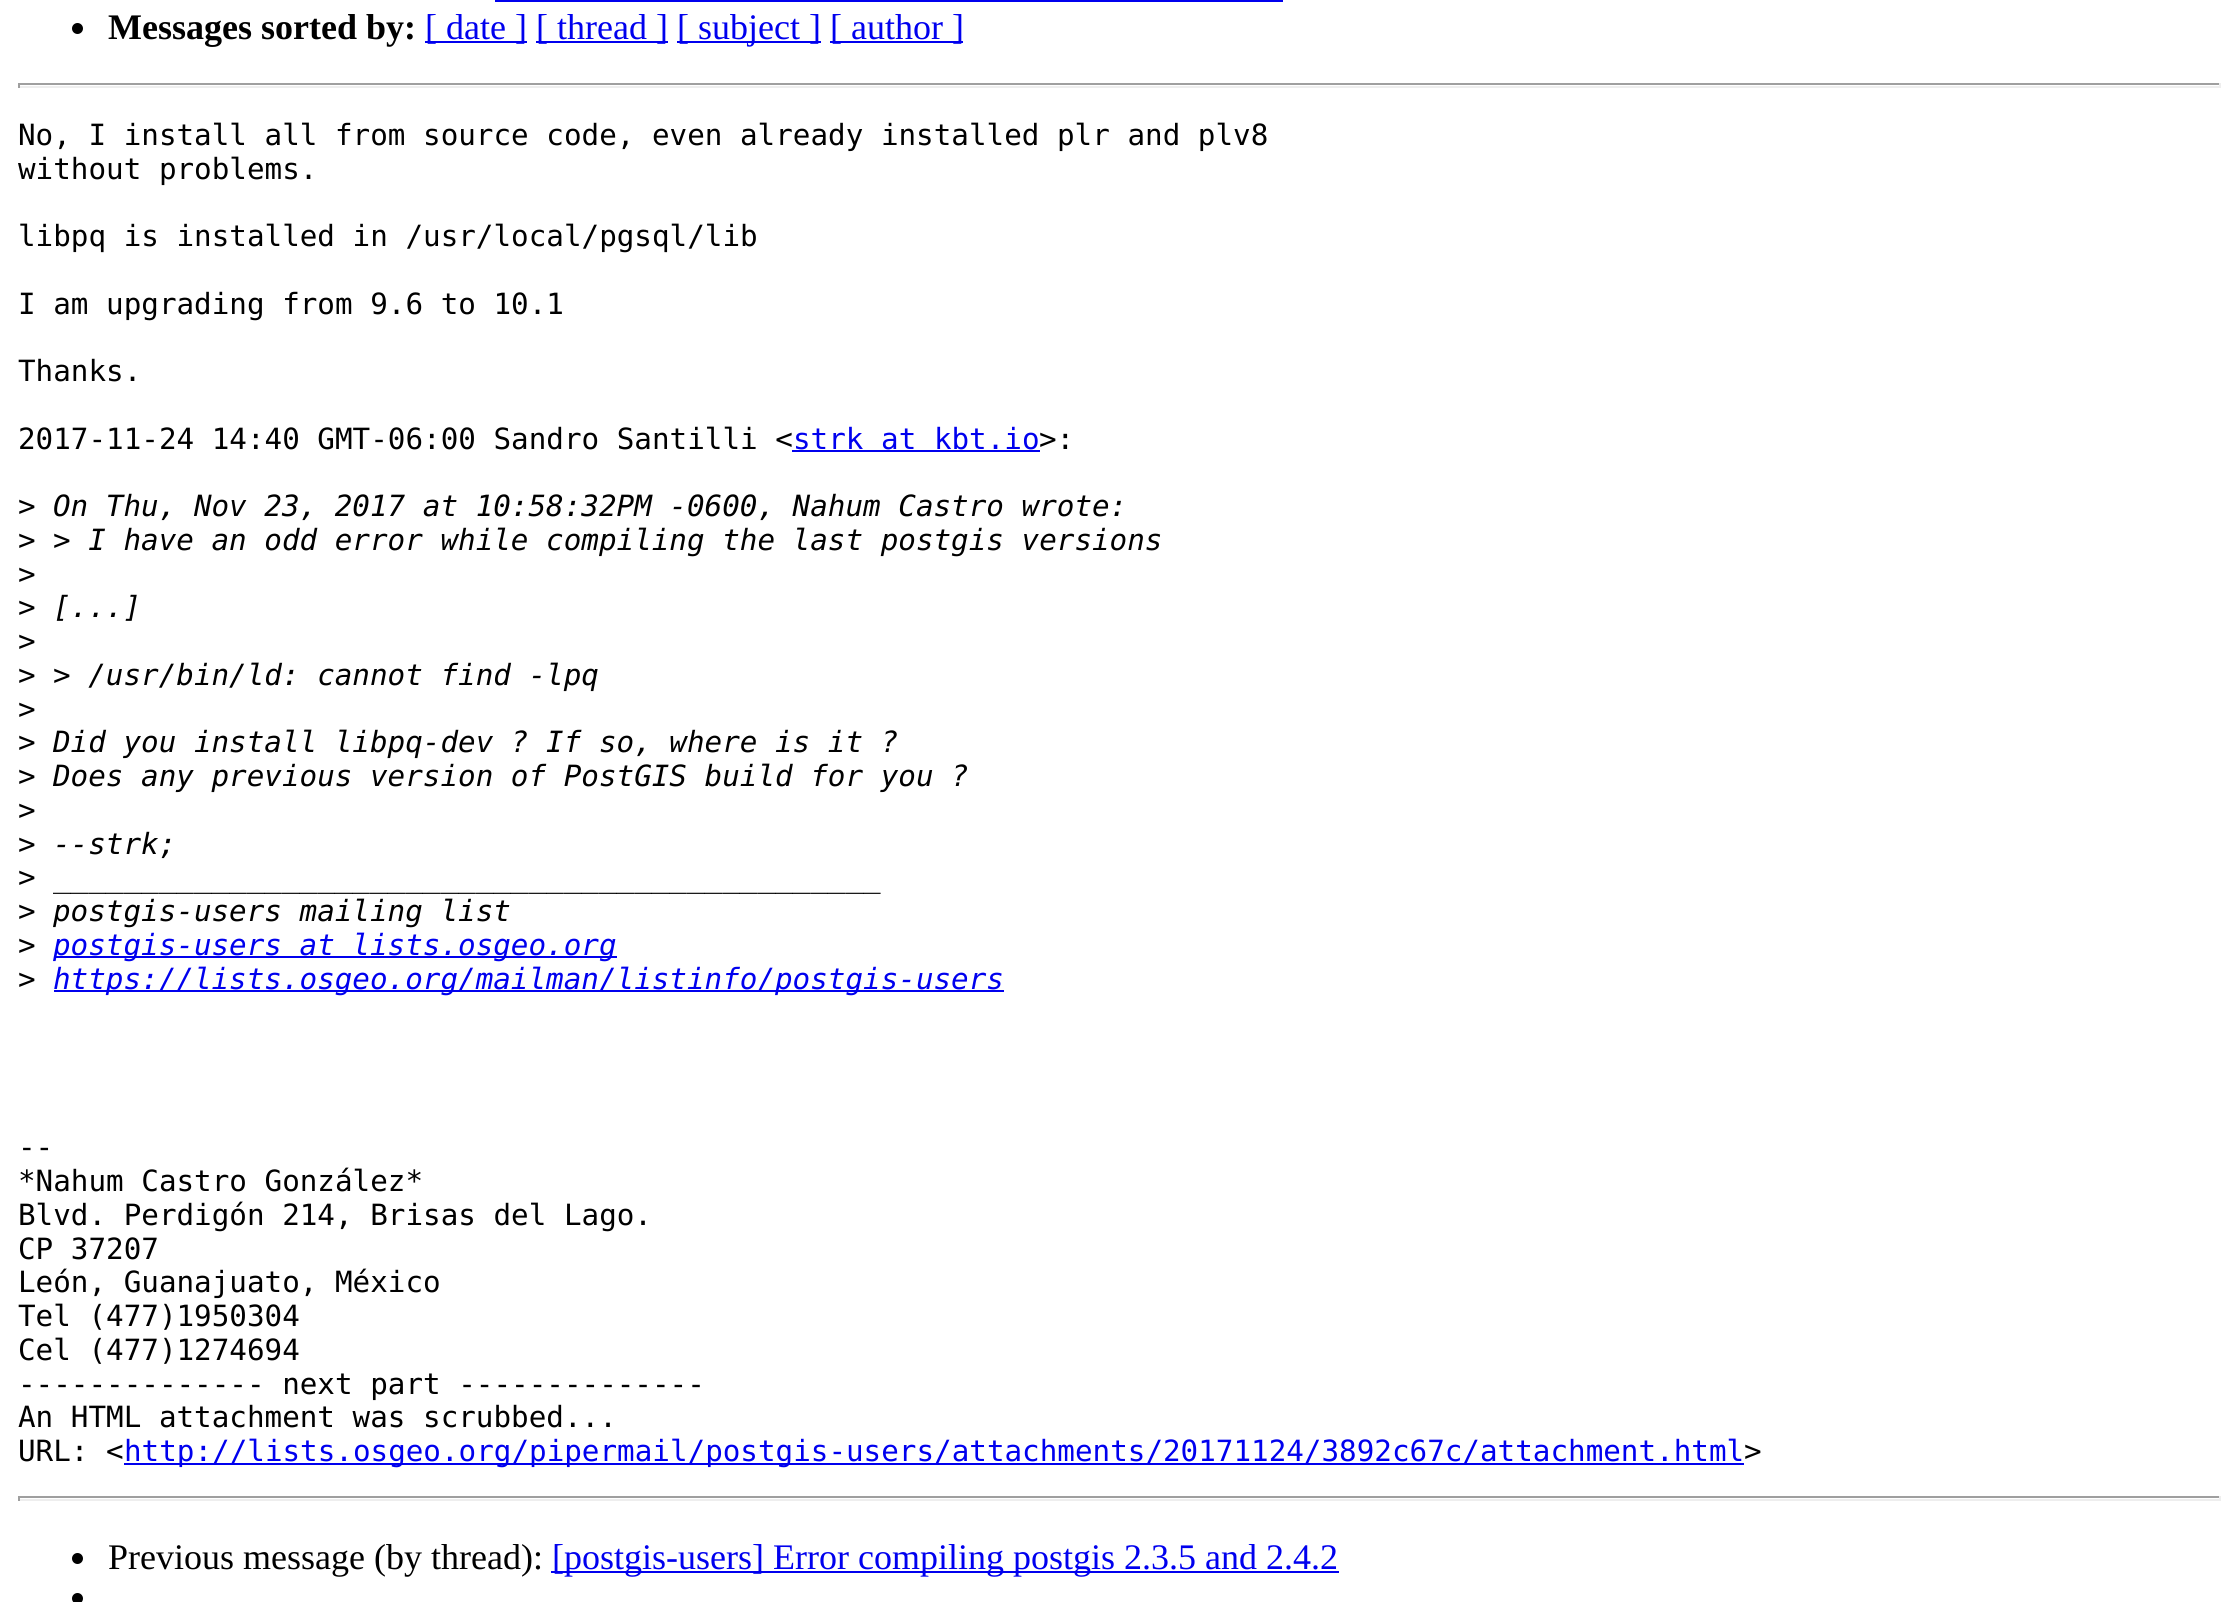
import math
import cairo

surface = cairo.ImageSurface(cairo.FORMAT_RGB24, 2238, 1602)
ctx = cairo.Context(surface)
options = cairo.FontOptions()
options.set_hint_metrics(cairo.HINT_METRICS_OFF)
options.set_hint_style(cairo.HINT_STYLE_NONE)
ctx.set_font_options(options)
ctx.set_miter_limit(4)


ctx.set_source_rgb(1, 1, 1)
ctx.paint()
ctx.set_source_rgb(0, 0, 0.933)
ctx.rectangle(495, 0, 788, 2)
ctx.fill()
ctx.set_source_rgb(0, 0, 0)
ctx.arc(77.5, 28.5, 5.5, 0, 2 * math.pi)
ctx.fill()
ctx.select_font_face("Liberation Serif", cairo.FONT_SLANT_NORMAL, cairo.FONT_WEIGHT_BOLD)
ctx.set_font_size(36)
ctx.move_to(108, 39)
ctx.show_text("Messages sorted by:")
ctx.set_source_rgb(0, 0, 0.933)
ctx.rectangle(425, 41, 102, 2)
ctx.fill()
ctx.select_font_face("Liberation Serif")
ctx.move_to(425, 39)
ctx.show_text("[ date ]")
ctx.rectangle(536, 41, 132, 2)
ctx.fill()
ctx.move_to(536, 39)
ctx.show_text("[ thread ]")
ctx.rectangle(677, 41, 144, 2)
ctx.fill()
ctx.move_to(677, 39)
ctx.show_text("[ subject ]")
ctx.rectangle(830, 41, 133, 2)
ctx.fill()
ctx.move_to(830, 39)
ctx.show_text("[ author ]")
ctx.set_source_rgb(0.624, 0.624, 0.624)
ctx.rectangle(18, 83, 2203, 2)
ctx.fill()
ctx.set_source_rgb(0.933, 0.933, 0.933)
ctx.rectangle(2219, 83, 2, 5)
ctx.fill()
ctx.rectangle(18, 86, 2203, 2)
ctx.fill()
ctx.set_source_rgb(0.624, 0.624, 0.624)
ctx.rectangle(18, 83, 2, 5)
ctx.fill()
ctx.select_font_face("DejaVu Sans Mono")
ctx.set_font_size(29.25)
ctx.set_source_rgb(0, 0, 0)
ctx.move_to(18, 145)
ctx.show_text("No, I install all from source code, even already installed plr and plv8")
ctx.move_to(18, 179)
ctx.show_text("without problems.")
ctx.move_to(18, 246)
ctx.show_text("libpq is installed in /usr/local/pgsql/lib")
ctx.move_to(18, 314)
ctx.show_text("I am upgrading from 9.6 to 10.1")
ctx.move_to(18, 381)
ctx.show_text("Thanks.")
ctx.move_to(18, 449)
ctx.show_text("2017-11-24 14:40 GMT-06:00 Sandro Santilli <")
ctx.set_source_rgb(0, 0, 0.933)
ctx.move_to(793, 449)
ctx.show_text("strk at kbt.io")
ctx.rectangle(792, 450, 248, 2)
ctx.fill()
ctx.set_source_rgb(0, 0, 0)
ctx.move_to(1039, 449)
ctx.show_text(">:")
ctx.move_to(18, 516)
ctx.show_text(">")
ctx.select_font_face("DejaVu Sans Mono", cairo.FONT_SLANT_ITALIC)
ctx.move_to(53, 516)
ctx.show_text("On Thu, Nov 23, 2017 at 10:58:32PM -0600, Nahum Castro wrote:")
ctx.select_font_face("DejaVu Sans Mono")
ctx.move_to(18, 550)
ctx.show_text(">")
ctx.select_font_face("DejaVu Sans Mono", cairo.FONT_SLANT_ITALIC)
ctx.move_to(53, 550)
ctx.show_text("> I have an odd error while compiling the last postgis versions")
ctx.select_font_face("DejaVu Sans Mono")
ctx.move_to(18, 584)
ctx.show_text(">")
ctx.move_to(18, 617)
ctx.show_text(">")
ctx.select_font_face("DejaVu Sans Mono", cairo.FONT_SLANT_ITALIC)
ctx.move_to(53, 617)
ctx.show_text("[...]")
ctx.select_font_face("DejaVu Sans Mono")
ctx.move_to(18, 651)
ctx.show_text(">")
ctx.move_to(18, 685)
ctx.show_text(">")
ctx.select_font_face("DejaVu Sans Mono", cairo.FONT_SLANT_ITALIC)
ctx.move_to(53, 685)
ctx.show_text("> /usr/bin/ld: cannot find -lpq")
ctx.select_font_face("DejaVu Sans Mono")
ctx.move_to(18, 719)
ctx.show_text(">")
ctx.move_to(18, 752)
ctx.show_text(">")
ctx.select_font_face("DejaVu Sans Mono", cairo.FONT_SLANT_ITALIC)
ctx.move_to(53, 752)
ctx.show_text("Did you install libpq-dev ? If so, where is it ?")
ctx.select_font_face("DejaVu Sans Mono")
ctx.move_to(18, 786)
ctx.show_text(">")
ctx.select_font_face("DejaVu Sans Mono", cairo.FONT_SLANT_ITALIC)
ctx.move_to(53, 786)
ctx.show_text("Does any previous version of PostGIS build for you ?")
ctx.select_font_face("DejaVu Sans Mono")
ctx.move_to(18, 820)
ctx.show_text(">")
ctx.move_to(18, 854)
ctx.show_text(">")
ctx.select_font_face("DejaVu Sans Mono", cairo.FONT_SLANT_ITALIC)
ctx.move_to(53, 854)
ctx.show_text("--strk;")
ctx.select_font_face("DejaVu Sans Mono")
ctx.move_to(18, 887)
ctx.show_text(">")
ctx.select_font_face("DejaVu Sans Mono", cairo.FONT_SLANT_ITALIC)
ctx.move_to(53, 887)
ctx.show_text("_______________________________________________")
ctx.select_font_face("DejaVu Sans Mono")
ctx.move_to(18, 921)
ctx.show_text(">")
ctx.select_font_face("DejaVu Sans Mono", cairo.FONT_SLANT_ITALIC)
ctx.move_to(53, 921)
ctx.show_text("postgis-users mailing list")
ctx.select_font_face("DejaVu Sans Mono")
ctx.move_to(18, 955)
ctx.show_text(">")
ctx.set_source_rgb(0, 0, 0.933)
ctx.rectangle(54, 956, 563, 2)
ctx.fill()
ctx.select_font_face("DejaVu Sans Mono", cairo.FONT_SLANT_ITALIC)
ctx.move_to(53, 955)
ctx.show_text("postgis-users at lists.osgeo.org")
ctx.select_font_face("DejaVu Sans Mono")
ctx.set_source_rgb(0, 0, 0)
ctx.move_to(18, 989)
ctx.show_text(">")
ctx.set_source_rgb(0, 0, 0.933)
ctx.rectangle(54, 990, 950, 2)
ctx.fill()
ctx.select_font_face("DejaVu Sans Mono", cairo.FONT_SLANT_ITALIC)
ctx.move_to(53, 989)
ctx.show_text("https://lists.osgeo.org/mailman/listinfo/postgis-users")
ctx.select_font_face("DejaVu Sans Mono")
ctx.set_source_rgb(0, 0, 0)
ctx.move_to(18, 1157)
ctx.show_text("--")
ctx.move_to(18, 1191)
ctx.show_text("*Nahum Castro González*")
ctx.move_to(18, 1225)
ctx.show_text("Blvd. Perdigón 214, Brisas del Lago.")
ctx.move_to(18, 1259)
ctx.show_text("CP 37207")
ctx.move_to(18, 1292)
ctx.show_text("León, Guanajuato, México")
ctx.move_to(18, 1326)
ctx.show_text("Tel (477)1950304")
ctx.move_to(18, 1360)
ctx.show_text("Cel (477)1274694")
ctx.move_to(18, 1394)
ctx.show_text("-------------- next part --------------")
ctx.move_to(18, 1427)
ctx.show_text("An HTML attachment was scrubbed...")
ctx.move_to(18, 1461)
ctx.show_text("URL: <")
ctx.set_source_rgb(0, 0, 0.933)
ctx.rectangle(124, 1463, 1620, 2)
ctx.fill()
ctx.move_to(124, 1461)
ctx.show_text("http://lists.osgeo.org/pipermail/postgis-users/attachments/20171124/3892c67c/attachment.html")
ctx.set_source_rgb(0, 0, 0)
ctx.move_to(1744, 1461)
ctx.show_text(">")
ctx.set_source_rgb(0.624, 0.624, 0.624)
ctx.rectangle(18, 1496, 2203, 2)
ctx.fill()
ctx.set_source_rgb(0.933, 0.933, 0.933)
ctx.rectangle(2219, 1496, 2, 5)
ctx.fill()
ctx.rectangle(18, 1499, 2203, 2)
ctx.fill()
ctx.set_source_rgb(0.624, 0.624, 0.624)
ctx.rectangle(18, 1496, 2, 5)
ctx.fill()
ctx.set_source_rgb(0, 0, 0)
ctx.arc(77.5, 1558.5, 5.5, 0, 2 * math.pi)
ctx.fill()
ctx.select_font_face("Liberation Serif")
ctx.set_font_size(36)
ctx.move_to(108, 1569)
ctx.show_text("Previous message (by thread):")
ctx.set_source_rgb(0, 0, 0.933)
ctx.rectangle(551, 1571, 788, 2)
ctx.fill()
ctx.move_to(552, 1569)
ctx.show_text("[postgis-users] Error compiling postgis 2.3.5 and 2.4.2")
ctx.set_source_rgb(0, 0, 0)
ctx.new_path()
ctx.arc(77.5, 1598.5, 5.5, 0, 2 * math.pi)
ctx.fill()
surface.write_to_png("page.png")
